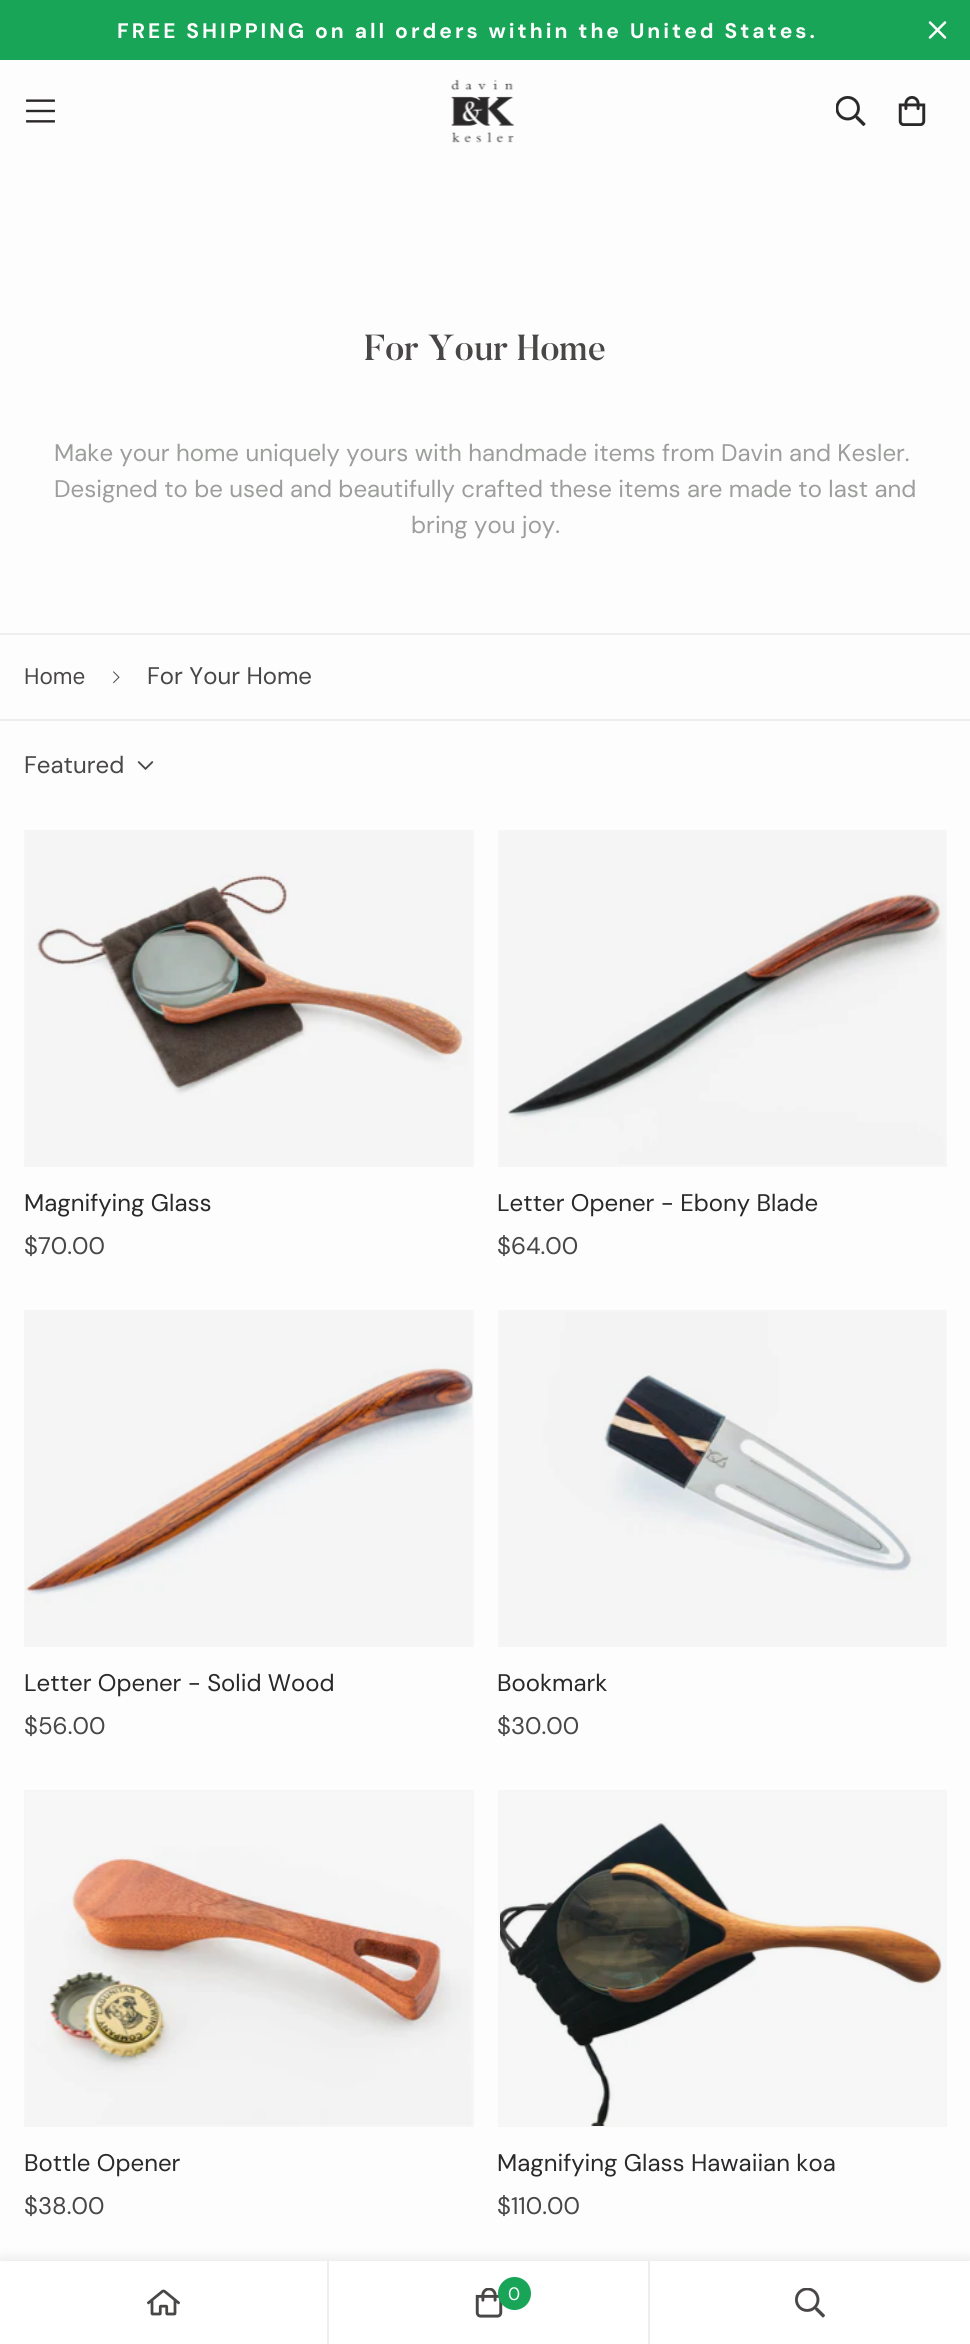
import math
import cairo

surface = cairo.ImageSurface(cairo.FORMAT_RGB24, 970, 2344)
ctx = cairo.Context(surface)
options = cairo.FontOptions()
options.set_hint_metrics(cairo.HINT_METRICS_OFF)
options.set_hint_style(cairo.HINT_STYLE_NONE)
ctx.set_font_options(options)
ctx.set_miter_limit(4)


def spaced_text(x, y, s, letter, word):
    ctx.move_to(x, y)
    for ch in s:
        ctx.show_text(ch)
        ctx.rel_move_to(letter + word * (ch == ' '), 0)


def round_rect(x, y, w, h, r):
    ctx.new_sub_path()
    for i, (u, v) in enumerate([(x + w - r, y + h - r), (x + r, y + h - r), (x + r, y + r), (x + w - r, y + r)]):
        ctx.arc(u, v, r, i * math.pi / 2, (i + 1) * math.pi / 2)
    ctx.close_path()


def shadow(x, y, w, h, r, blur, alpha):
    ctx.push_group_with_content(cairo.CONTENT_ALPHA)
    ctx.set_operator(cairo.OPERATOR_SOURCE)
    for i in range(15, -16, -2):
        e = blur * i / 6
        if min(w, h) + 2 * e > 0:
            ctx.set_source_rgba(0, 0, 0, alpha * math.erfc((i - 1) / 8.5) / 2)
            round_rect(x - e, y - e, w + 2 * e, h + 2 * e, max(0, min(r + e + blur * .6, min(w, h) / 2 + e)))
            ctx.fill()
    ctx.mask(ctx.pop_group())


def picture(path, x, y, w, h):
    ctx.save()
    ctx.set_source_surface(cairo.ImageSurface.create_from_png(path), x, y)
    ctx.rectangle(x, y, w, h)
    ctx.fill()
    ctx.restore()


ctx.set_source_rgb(0.992, 0.992, 0.992)
ctx.paint()
ctx.set_source_rgb(0.094, 0.647, 0.345)
ctx.rectangle(0, 0, 970, 60)
ctx.fill()
ctx.select_font_face("DM Sans", cairo.FONT_SLANT_NORMAL, cairo.FONT_WEIGHT_BOLD)
ctx.set_font_size(21)
ctx.set_source_rgb(0.992, 0.992, 0.992)
spaced_text(117, 38, "FREE SHIPPING on all orders within the United States.", 3, 0)
ctx.new_path()
ctx.move_to(930, 37.5)
ctx.line_to(945, 22.5)
ctx.move_to(930, 22.5)
ctx.line_to(945, 37.5)
ctx.set_line_width(2.5)
ctx.set_line_cap(cairo.LINE_CAP_ROUND)
ctx.set_line_join(cairo.LINE_JOIN_ROUND)
ctx.stroke()
picture("img1.png", 26, 99, 29, 24)
picture("img2.png", 451, 79, 63, 64)
picture("img3.png", 836, 96, 30, 30)
picture("img4.png", 898, 96, 28, 30)
ctx.select_font_face("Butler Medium")
ctx.set_font_size(36)
ctx.set_source_rgb(0.286, 0.275, 0.275)
ctx.move_to(364, 360)
ctx.show_text("For Your Home")
ctx.select_font_face("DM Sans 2")
ctx.set_font_size(24)
ctx.set_source_rgb(0.608, 0.62, 0.608)
ctx.move_to(54, 461)
ctx.show_text("Make your home uniquely yours with handmade items from Davin and Kesler.")
ctx.move_to(54, 497)
ctx.show_text("Designed to be used and beautifully crafted these items are made to last and")
ctx.move_to(411, 533)
ctx.show_text("bring you joy.")
ctx.set_source_rgb(0.933, 0.933, 0.933)
ctx.rectangle(0, 633, 970, 2)
ctx.fill()
ctx.rectangle(0, 719, 970, 2)
ctx.fill()
ctx.select_font_face("DM Sans")
ctx.set_font_size(22.5)
ctx.set_source_rgb(0.286, 0.275, 0.275)
ctx.move_to(24, 684)
ctx.show_text("Home")
picture("img5.png", 113, 671, 7, 13)
ctx.select_font_face("DM Sans 2")
ctx.set_font_size(24)
ctx.move_to(147, 684)
ctx.show_text("For Your Home")
ctx.move_to(24, 773)
ctx.show_text("Featured")
picture("img6.png", 137, 761, 17, 9)
ctx.rectangle(25, 831, 448, 335)
ctx.set_source_rgb(0.961, 0.961, 0.961)
ctx.set_line_width(2)
ctx.set_line_cap(cairo.LINE_CAP_BUTT)
ctx.set_line_join(cairo.LINE_JOIN_MITER)
ctx.stroke()
picture("img7.png", 26, 832, 446, 333)
ctx.set_source_rgb(0.165, 0.157, 0.157)
ctx.move_to(24, 1211)
ctx.show_text("Magnifying Glass")
ctx.set_source_rgb(0.286, 0.275, 0.275)
ctx.move_to(24, 1254)
ctx.show_text("$70.00")
ctx.rectangle(499, 831, 447, 335)
ctx.set_source_rgb(0.961, 0.961, 0.961)
ctx.stroke()
picture("img8.png", 500, 832, 445, 333)
ctx.set_source_rgb(0.165, 0.157, 0.157)
ctx.move_to(497, 1211)
ctx.show_text("Letter Opener - Ebony Blade")
ctx.set_source_rgb(0.286, 0.275, 0.275)
ctx.move_to(497, 1254)
ctx.show_text("$64.00")
ctx.rectangle(25, 1311, 448, 335)
ctx.set_source_rgb(0.961, 0.961, 0.961)
ctx.stroke()
picture("img9.png", 25, 1312, 448, 333)
ctx.set_source_rgb(0.165, 0.157, 0.157)
ctx.move_to(24, 1691)
ctx.show_text("Letter Opener - Solid Wood")
ctx.set_source_rgb(0.286, 0.275, 0.275)
ctx.move_to(24, 1734)
ctx.show_text("$56.00")
ctx.rectangle(499, 1311, 447, 335)
ctx.set_source_rgb(0.961, 0.961, 0.961)
ctx.stroke()
picture("img10.png", 500, 1312, 445, 333)
ctx.set_source_rgb(0.165, 0.157, 0.157)
ctx.move_to(497, 1691)
ctx.show_text("Bookmark")
ctx.set_source_rgb(0.286, 0.275, 0.275)
ctx.move_to(497, 1734)
ctx.show_text("$30.00")
ctx.rectangle(25, 1791, 448, 335)
ctx.set_source_rgb(0.961, 0.961, 0.961)
ctx.stroke()
picture("img11.png", 26, 1792, 446, 333)
ctx.set_source_rgb(0.165, 0.157, 0.157)
ctx.move_to(24, 2171)
ctx.show_text("Bottle Opener")
ctx.set_source_rgb(0.286, 0.275, 0.275)
ctx.move_to(24, 2214)
ctx.show_text("$38.00")
ctx.rectangle(499, 1791, 447, 335)
ctx.set_source_rgb(0.961, 0.961, 0.961)
ctx.stroke()
picture("img12.png", 500, 1792, 445, 334)
ctx.set_source_rgb(0.165, 0.157, 0.157)
ctx.move_to(497, 2171)
ctx.show_text("Magnifying Glass Hawaiian koa")
ctx.set_source_rgb(0.286, 0.275, 0.275)
ctx.move_to(497, 2214)
ctx.show_text("$110.00")
ctx.set_source_rgb(0, 0, 0)
shadow(0, 2261, 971, 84, 0, 7.5, 0.11)
ctx.set_source_rgb(1, 1, 1)
ctx.rectangle(0, 2261, 970, 83)
ctx.fill()
ctx.set_source_rgb(0.933, 0.933, 0.933)
ctx.rectangle(327, 2261, 2, 83)
ctx.fill()
picture("img13.png", 147, 2289, 33, 27)
ctx.rectangle(648, 2261, 2, 83)
ctx.fill()
picture("img14.png", 475, 2288, 28, 30)
ctx.set_source_rgb(0.094, 0.647, 0.345)
ctx.arc(514.5, 2293.5, 16.5, 0, 2 * math.pi)
ctx.fill()
ctx.select_font_face("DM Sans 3")
ctx.set_font_size(18)
ctx.set_source_rgb(0.992, 0.992, 0.992)
ctx.move_to(508, 2300)
ctx.show_text("0")
picture("img15.png", 795, 2288, 30, 30)
surface.write_to_png("page.png")
